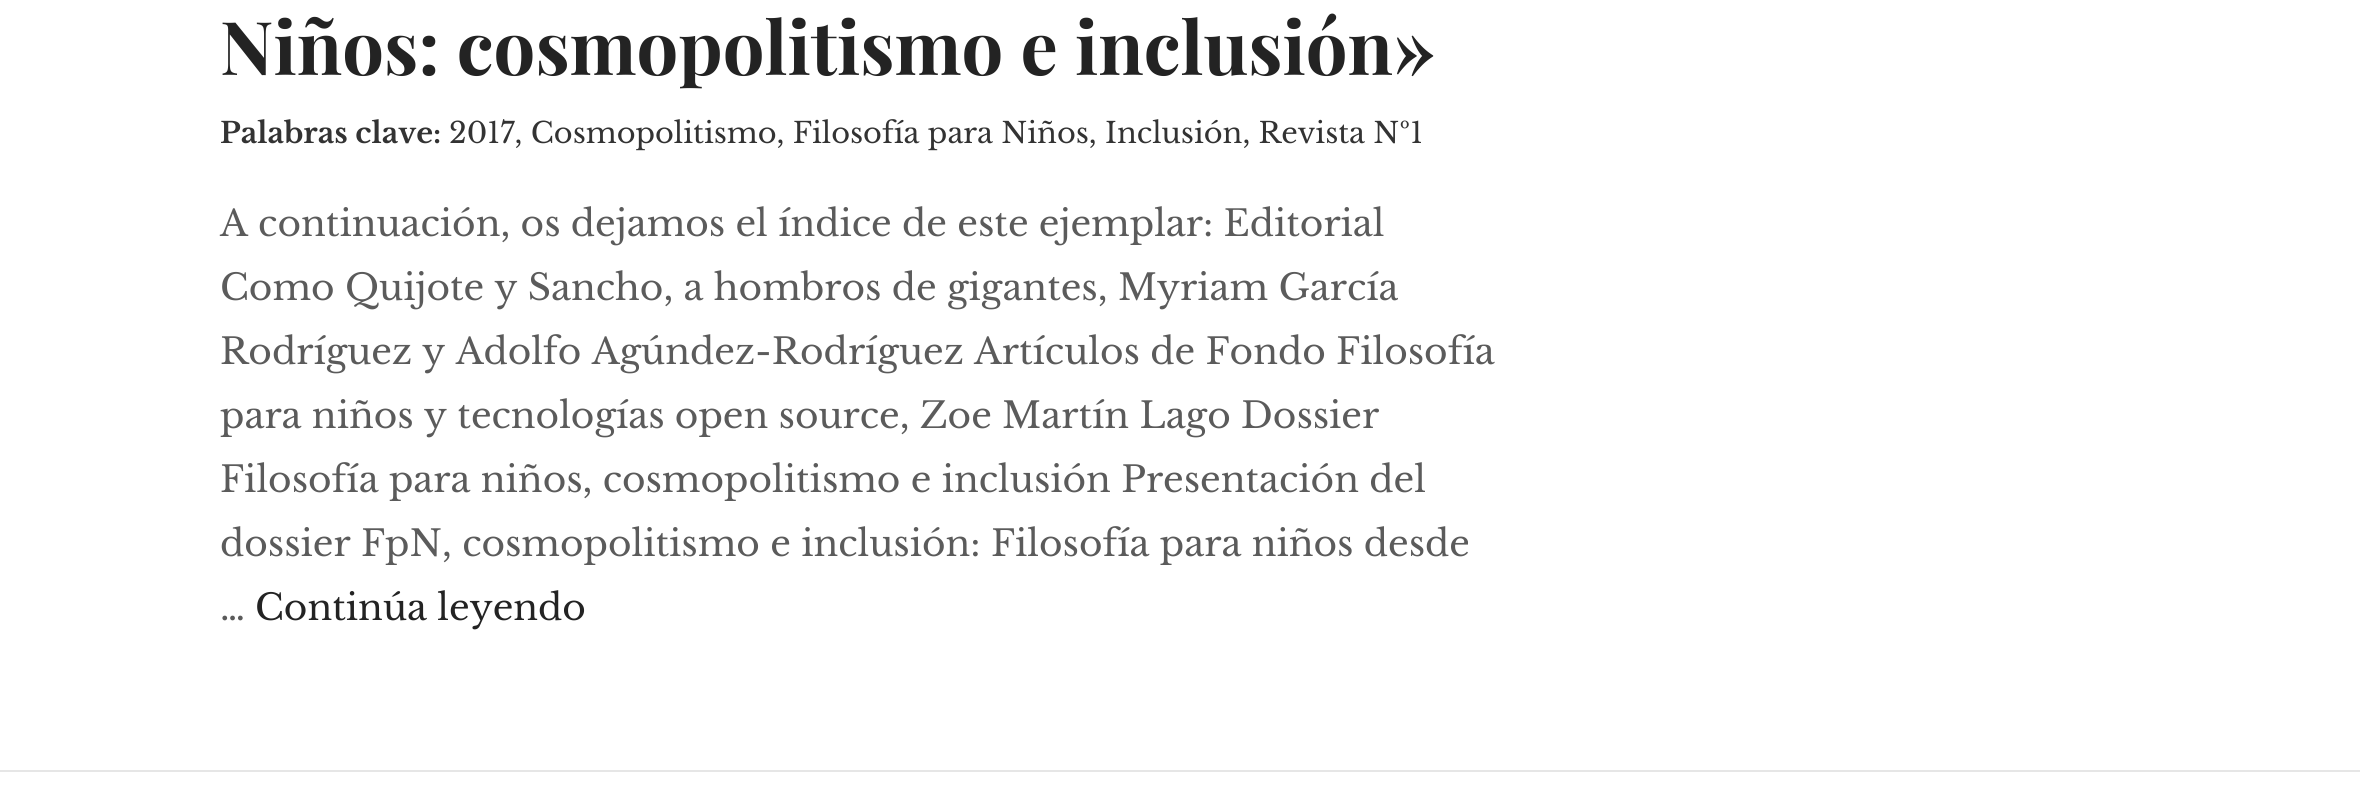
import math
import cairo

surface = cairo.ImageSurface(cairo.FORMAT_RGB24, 2360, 800)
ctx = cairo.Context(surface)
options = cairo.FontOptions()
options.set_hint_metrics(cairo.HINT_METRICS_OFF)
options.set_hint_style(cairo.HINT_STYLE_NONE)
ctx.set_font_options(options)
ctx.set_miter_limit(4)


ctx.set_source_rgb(1, 1, 1)
ctx.paint()
ctx.select_font_face("Playfair Display", cairo.FONT_SLANT_NORMAL, cairo.FONT_WEIGHT_BOLD)
ctx.set_font_size(74)
ctx.set_source_rgb(0.137, 0.137, 0.137)
ctx.move_to(220, 75)
ctx.show_text("Niños: cosmopolitismo e inclusión»")
ctx.select_font_face("Libre Baskerville", cairo.FONT_SLANT_NORMAL, cairo.FONT_WEIGHT_BOLD)
ctx.set_font_size(28.8)
ctx.set_source_rgb(0.2, 0.2, 0.2)
ctx.move_to(220, 143)
ctx.show_text("Palabras clave:")
ctx.select_font_face("Libre Baskerville")
ctx.move_to(449, 143)
ctx.show_text("2017, Cosmopolitismo, Filosofía para Niños, Inclusión, Revista Nº1")
ctx.set_font_size(36)
ctx.set_source_rgb(0.357, 0.357, 0.357)
ctx.move_to(220, 236)
ctx.show_text("A continuación, os dejamos el índice de este ejemplar: Editorial")
ctx.move_to(220, 300)
ctx.show_text("Como Quijote y Sancho, a hombros de gigantes, Myriam García")
ctx.move_to(220, 364)
ctx.show_text("Rodríguez y Adolfo Agúndez-Rodríguez Artículos de Fondo Filosofía")
ctx.move_to(220, 428)
ctx.show_text("para niños y tecnologías open source, Zoe Martín Lago Dossier")
ctx.move_to(220, 492)
ctx.show_text("Filosofía para niños, cosmopolitismo e inclusión Presentación del")
ctx.move_to(220, 556)
ctx.show_text("dossier FpN, cosmopolitismo e inclusión: Filosofía para niños desde")
ctx.move_to(220, 620)
ctx.show_text("…")
ctx.set_source_rgb(0.137, 0.137, 0.137)
ctx.move_to(255, 620)
ctx.show_text("Continúa leyendo")
ctx.set_source_rgb(0.902, 0.902, 0.902)
ctx.rectangle(0, 770, 2360, 2)
ctx.fill()
surface.write_to_png("page.png")
